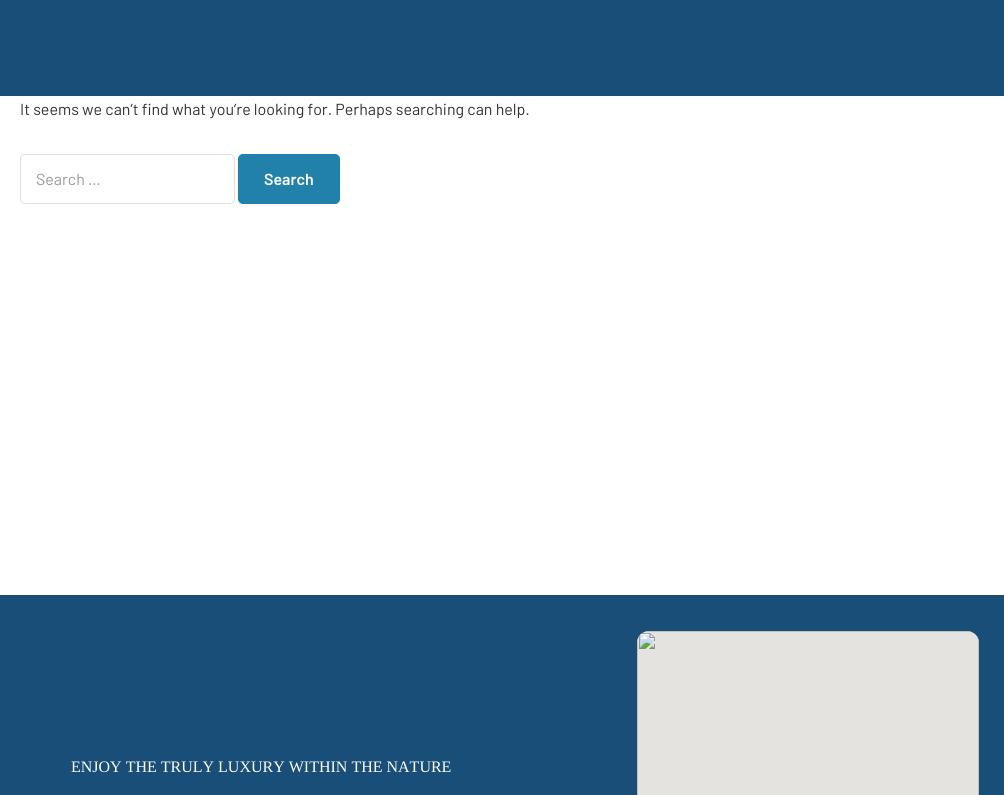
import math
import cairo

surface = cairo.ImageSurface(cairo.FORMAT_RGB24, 1004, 795)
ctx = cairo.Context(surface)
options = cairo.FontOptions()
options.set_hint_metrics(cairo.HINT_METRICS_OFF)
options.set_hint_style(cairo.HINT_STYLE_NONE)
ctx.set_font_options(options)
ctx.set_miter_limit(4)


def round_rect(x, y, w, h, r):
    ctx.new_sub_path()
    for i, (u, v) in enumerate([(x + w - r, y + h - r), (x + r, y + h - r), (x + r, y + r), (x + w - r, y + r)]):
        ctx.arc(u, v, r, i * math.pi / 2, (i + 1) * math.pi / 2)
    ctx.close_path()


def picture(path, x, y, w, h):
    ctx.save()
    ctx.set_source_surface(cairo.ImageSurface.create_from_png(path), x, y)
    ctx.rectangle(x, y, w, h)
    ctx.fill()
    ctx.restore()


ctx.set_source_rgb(1, 1, 1)
ctx.paint()
ctx.set_source_rgb(0.094, 0.306, 0.467)
ctx.rectangle(0, 0, 1004, 96)
ctx.fill()
ctx.select_font_face("Barlow")
ctx.set_font_size(16)
ctx.set_source_rgb(0.2, 0.2, 0.2)
ctx.move_to(20, 115)
ctx.show_text("It seems we can’t find what you’re looking for. Perhaps searching can help.")
round_rect(20.5, 154.5, 214, 49, 4.5)
ctx.set_source_rgb(0.878, 0.878, 0.878)
ctx.set_line_width(1)
ctx.stroke()
ctx.set_source_rgb(0.6, 0.6, 0.6)
ctx.move_to(36, 185)
ctx.show_text("Search …")
ctx.set_source_rgb(0.129, 0.506, 0.667)
round_rect(238.5, 154.5, 101, 49, 4.5)
ctx.fill_preserve()
ctx.stroke()
ctx.select_font_face("Barlow SemiBold")
ctx.set_source_rgb(1, 1, 1)
ctx.move_to(264, 185)
ctx.show_text("Search")
ctx.set_source_rgb(0.094, 0.306, 0.467)
ctx.rectangle(0, 595, 1004, 200)
ctx.fill()
ctx.select_font_face("Liberation Serif")
ctx.set_source_rgb(1, 1, 1)
ctx.move_to(71, 772)
ctx.show_text("ENJOY THE TRULY LUXURY WITHIN THE NATURE")
picture("img1.png", 637, 631, 342, 164)
surface.write_to_png("page.png")
